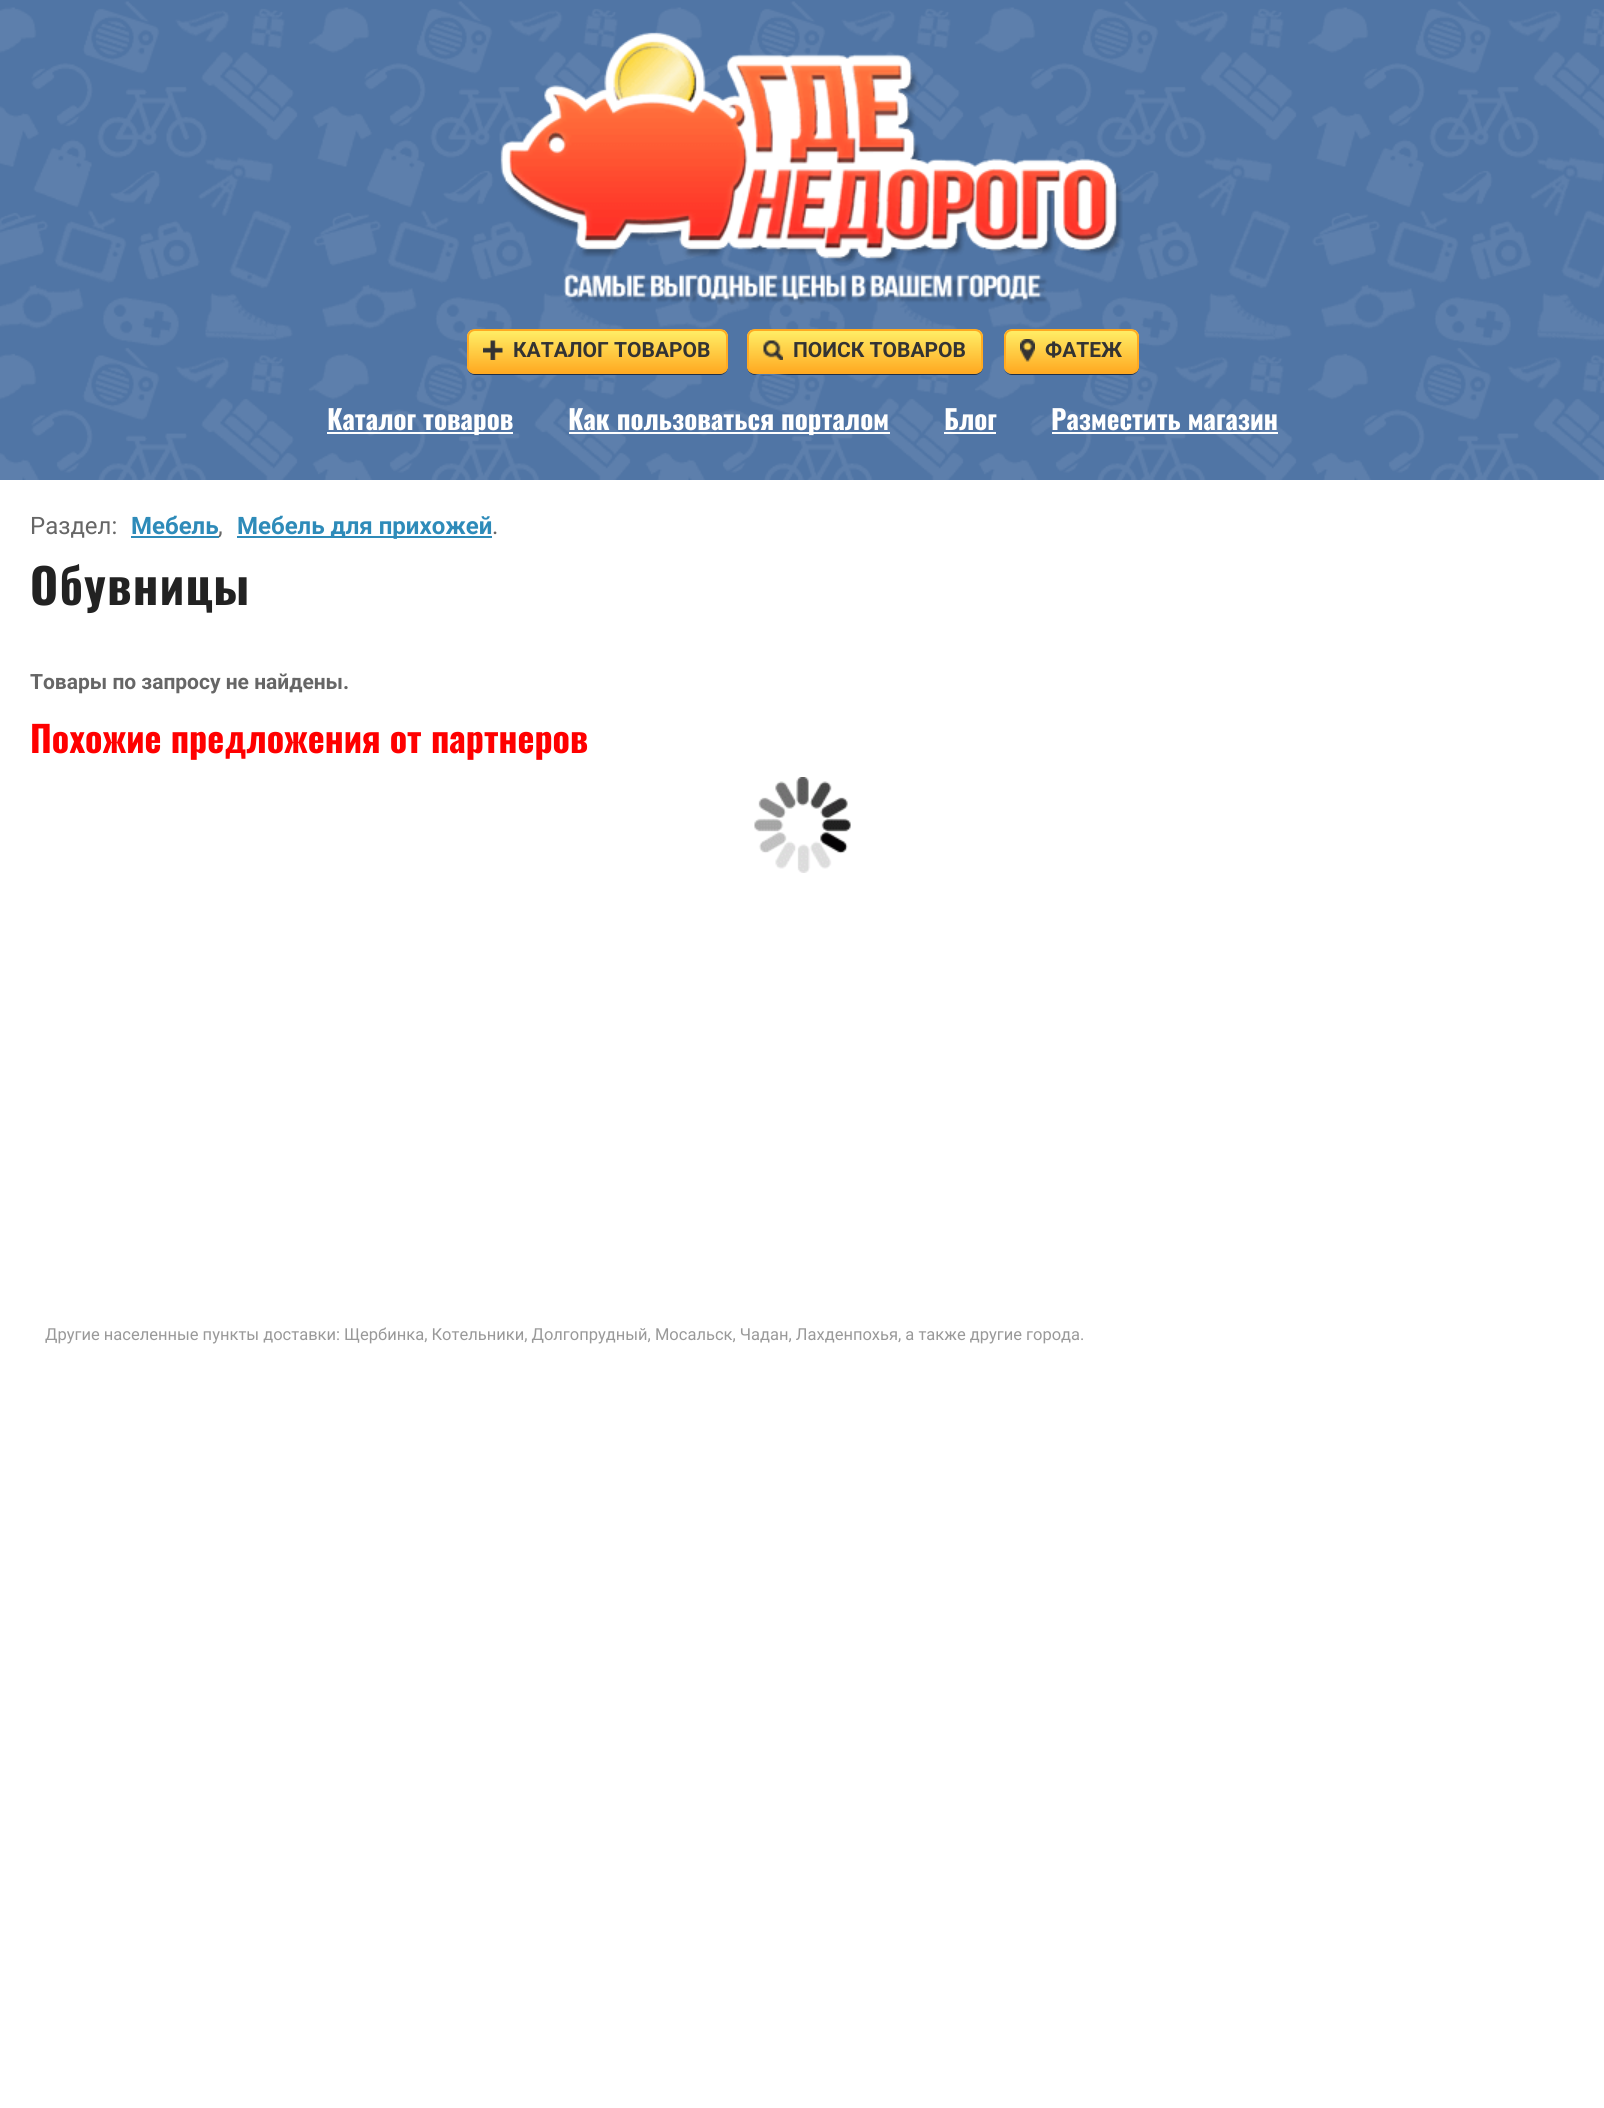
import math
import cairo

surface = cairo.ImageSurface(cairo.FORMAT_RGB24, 1604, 2108)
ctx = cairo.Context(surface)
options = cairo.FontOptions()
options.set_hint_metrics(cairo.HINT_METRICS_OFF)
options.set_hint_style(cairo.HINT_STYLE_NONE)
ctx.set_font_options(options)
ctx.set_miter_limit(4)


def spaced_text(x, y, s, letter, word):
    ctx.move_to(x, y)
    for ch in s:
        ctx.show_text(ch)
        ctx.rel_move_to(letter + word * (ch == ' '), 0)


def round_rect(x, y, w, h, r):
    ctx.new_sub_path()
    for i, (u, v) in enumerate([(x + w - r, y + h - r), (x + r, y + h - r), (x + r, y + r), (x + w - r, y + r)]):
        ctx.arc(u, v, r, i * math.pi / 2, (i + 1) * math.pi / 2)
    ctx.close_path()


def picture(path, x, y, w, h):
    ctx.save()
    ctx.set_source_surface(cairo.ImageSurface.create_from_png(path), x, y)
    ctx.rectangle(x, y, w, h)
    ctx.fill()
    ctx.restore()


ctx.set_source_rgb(1, 1, 1)
ctx.paint()
ctx.set_source_rgb(0.314, 0.459, 0.647)
ctx.rectangle(0, 0, 1604, 1)
ctx.fill()
picture("img1.png", 0, 1, 1604, 479)
picture("img2.png", 500, 32, 623, 273)
ctx.set_source_rgb(0.122, 0.184, 0.278)
ctx.new_path()
ctx.move_to(467, 370)
ctx.curve_to(469, 373, 472, 375, 475, 375)
ctx.line_to(720, 375)
ctx.curve_to(724, 375, 728, 371, 728, 367)
ctx.line_to(728, 338)
ctx.line_to(727, 335)
ctx.line_to(728, 366)
ctx.curve_to(728, 370, 724, 374, 720, 374)
ctx.line_to(474, 374)
ctx.curve_to(471, 374, 469, 372, 467, 370)
ctx.close_path()
ctx.fill()
ctx.save()
round_rect(467, 329, 261, 45, 8)
ctx.clip()
gradient = cairo.LinearGradient(597, 330, 597, 372)
gradient.add_color_stop_rgba(0.05, 1, 0.925, 0.392, 1)
gradient.add_color_stop_rgba(1, 1, 0.671, 0.137, 1)
ctx.set_source(gradient)
ctx.rectangle(467, 330, 261, 42)
ctx.fill()
ctx.restore()
round_rect(468, 330, 259, 43, 7)
ctx.set_source_rgb(1, 0.667, 0.133)
ctx.stroke()
picture("img3.png", 483, 340, 20, 20)
ctx.select_font_face("Roboto", cairo.FONT_SLANT_NORMAL, cairo.FONT_WEIGHT_BOLD)
ctx.set_font_size(21)
ctx.set_source_rgb(0.2, 0.2, 0.2)
ctx.move_to(513, 357)
ctx.show_text("КАТАЛОГ ТОВАРОВ")
ctx.set_source_rgb(0.122, 0.184, 0.278)
ctx.new_path()
ctx.move_to(747, 366)
ctx.line_to(747, 367)
ctx.curve_to(747, 371, 751, 375, 755, 375)
ctx.line_to(975, 375)
ctx.curve_to(979, 375, 983, 371, 983, 367)
ctx.line_to(983, 338)
ctx.line_to(982, 335)
ctx.line_to(982, 356)
ctx.curve_to(982, 362, 984, 373, 975, 374)
ctx.line_to(791, 374)
ctx.curve_to(776, 374, 747, 380, 747, 366)
ctx.close_path()
ctx.fill()
ctx.save()
round_rect(747, 329, 236, 45, 8)
ctx.clip()
gradient = cairo.LinearGradient(865, 330, 865, 372)
gradient.add_color_stop_rgba(0.05, 1, 0.925, 0.392, 1)
gradient.add_color_stop_rgba(1, 1, 0.671, 0.137, 1)
ctx.set_source(gradient)
ctx.rectangle(747, 330, 236, 42)
ctx.fill()
ctx.restore()
round_rect(748, 330, 234, 43, 7)
ctx.set_source_rgb(1, 0.667, 0.133)
ctx.stroke()
picture("img4.png", 763, 340, 20, 20)
ctx.set_source_rgb(0.2, 0.2, 0.2)
ctx.move_to(793, 357)
ctx.show_text("ПОИСК ТОВАРОВ")
ctx.set_source_rgb(0.122, 0.184, 0.278)
ctx.new_path()
ctx.move_to(1004, 370)
ctx.curve_to(1006, 373, 1009, 375, 1012, 375)
ctx.line_to(1131, 375)
ctx.curve_to(1135, 375, 1139, 371, 1139, 367)
ctx.line_to(1139, 338)
ctx.line_to(1138, 335)
ctx.line_to(1138, 366)
ctx.curve_to(1138, 370, 1135, 374, 1131, 374)
ctx.line_to(1011, 374)
ctx.curve_to(1008, 374, 1006, 372, 1004, 370)
ctx.close_path()
ctx.fill()
ctx.save()
round_rect(1004, 329, 135, 45, 8)
ctx.clip()
gradient = cairo.LinearGradient(1071, 330, 1071, 372)
gradient.add_color_stop_rgba(0.05, 1, 0.925, 0.392, 1)
gradient.add_color_stop_rgba(1, 1, 0.671, 0.137, 1)
ctx.set_source(gradient)
ctx.rectangle(1004, 330, 135, 42)
ctx.fill()
ctx.restore()
round_rect(1005, 330, 133, 43, 7)
ctx.set_source_rgb(1, 0.667, 0.133)
ctx.stroke()
picture("img5.png", 1020, 339, 15, 23)
ctx.set_source_rgb(0.2, 0.2, 0.2)
ctx.move_to(1045, 357)
ctx.show_text("ФАТЕЖ")
ctx.set_source_rgb(1, 1, 1)
ctx.rectangle(327, 432, 186, 2)
ctx.fill()
ctx.select_font_face("Oswald", cairo.FONT_SLANT_NORMAL, cairo.FONT_WEIGHT_BOLD)
ctx.set_font_size(27)
ctx.move_to(327, 430)
ctx.show_text("Каталог товаров")
ctx.rectangle(569, 432, 321, 2)
ctx.fill()
ctx.move_to(568, 430)
ctx.show_text("Как пользоваться порталом")
ctx.move_to(944, 430)
ctx.show_text("Блог")
ctx.rectangle(944, 432, 52, 2)
ctx.fill()
ctx.move_to(1051, 430)
ctx.show_text("Разместить магазин")
ctx.rectangle(1052, 432, 226, 2)
ctx.fill()
ctx.select_font_face("Roboto")
ctx.set_font_size(24)
ctx.set_source_rgb(0.4, 0.4, 0.4)
ctx.move_to(30, 534)
ctx.show_text("Раздел:")
ctx.select_font_face("Roboto", cairo.FONT_SLANT_NORMAL, cairo.FONT_WEIGHT_BOLD)
ctx.set_source_rgb(0.18, 0.545, 0.725)
ctx.move_to(131, 534)
ctx.show_text("Мебель")
ctx.rectangle(131, 536, 88, 2)
ctx.fill()
ctx.select_font_face("Roboto")
ctx.set_source_rgb(0.4, 0.4, 0.4)
ctx.move_to(218, 534)
ctx.show_text(",")
ctx.set_source_rgb(0.18, 0.545, 0.725)
ctx.rectangle(237, 536, 255, 2)
ctx.fill()
ctx.select_font_face("Roboto", cairo.FONT_SLANT_NORMAL, cairo.FONT_WEIGHT_BOLD)
ctx.move_to(237, 534)
ctx.show_text("Мебель для прихожей")
ctx.select_font_face("Roboto")
ctx.set_source_rgb(0.4, 0.4, 0.4)
ctx.move_to(492, 534)
ctx.show_text(".")
ctx.select_font_face("Oswald", cairo.FONT_SLANT_NORMAL, cairo.FONT_WEIGHT_BOLD)
ctx.set_font_size(48)
ctx.set_source_rgb(0.133, 0.133, 0.133)
spaced_text(30, 605, "Обувницы", 1.5, 0)
ctx.select_font_face("Roboto", cairo.FONT_SLANT_NORMAL, cairo.FONT_WEIGHT_BOLD)
ctx.set_font_size(21)
ctx.set_source_rgb(0.4, 0.4, 0.4)
ctx.move_to(30, 689)
ctx.show_text("Товары по запросу не найдены.")
ctx.select_font_face("Oswald", cairo.FONT_SLANT_NORMAL, cairo.FONT_WEIGHT_BOLD)
ctx.set_font_size(36)
ctx.set_source_rgb(1, 0, 0)
ctx.move_to(30, 753)
ctx.show_text("Похожие предложения от партнеров")
picture("img6.png", 754, 777, 97, 96)
ctx.select_font_face("Roboto")
ctx.set_font_size(16.5)
ctx.set_source_rgb(0.6, 0.6, 0.6)
ctx.move_to(45, 1340)
ctx.show_text("Другие населенные пункты доставки: Щербинка, Котельники, Долгопрудный, Мосальск, Чадан, Лахденпохья, а также другие города.")
surface.write_to_png("page.png")
